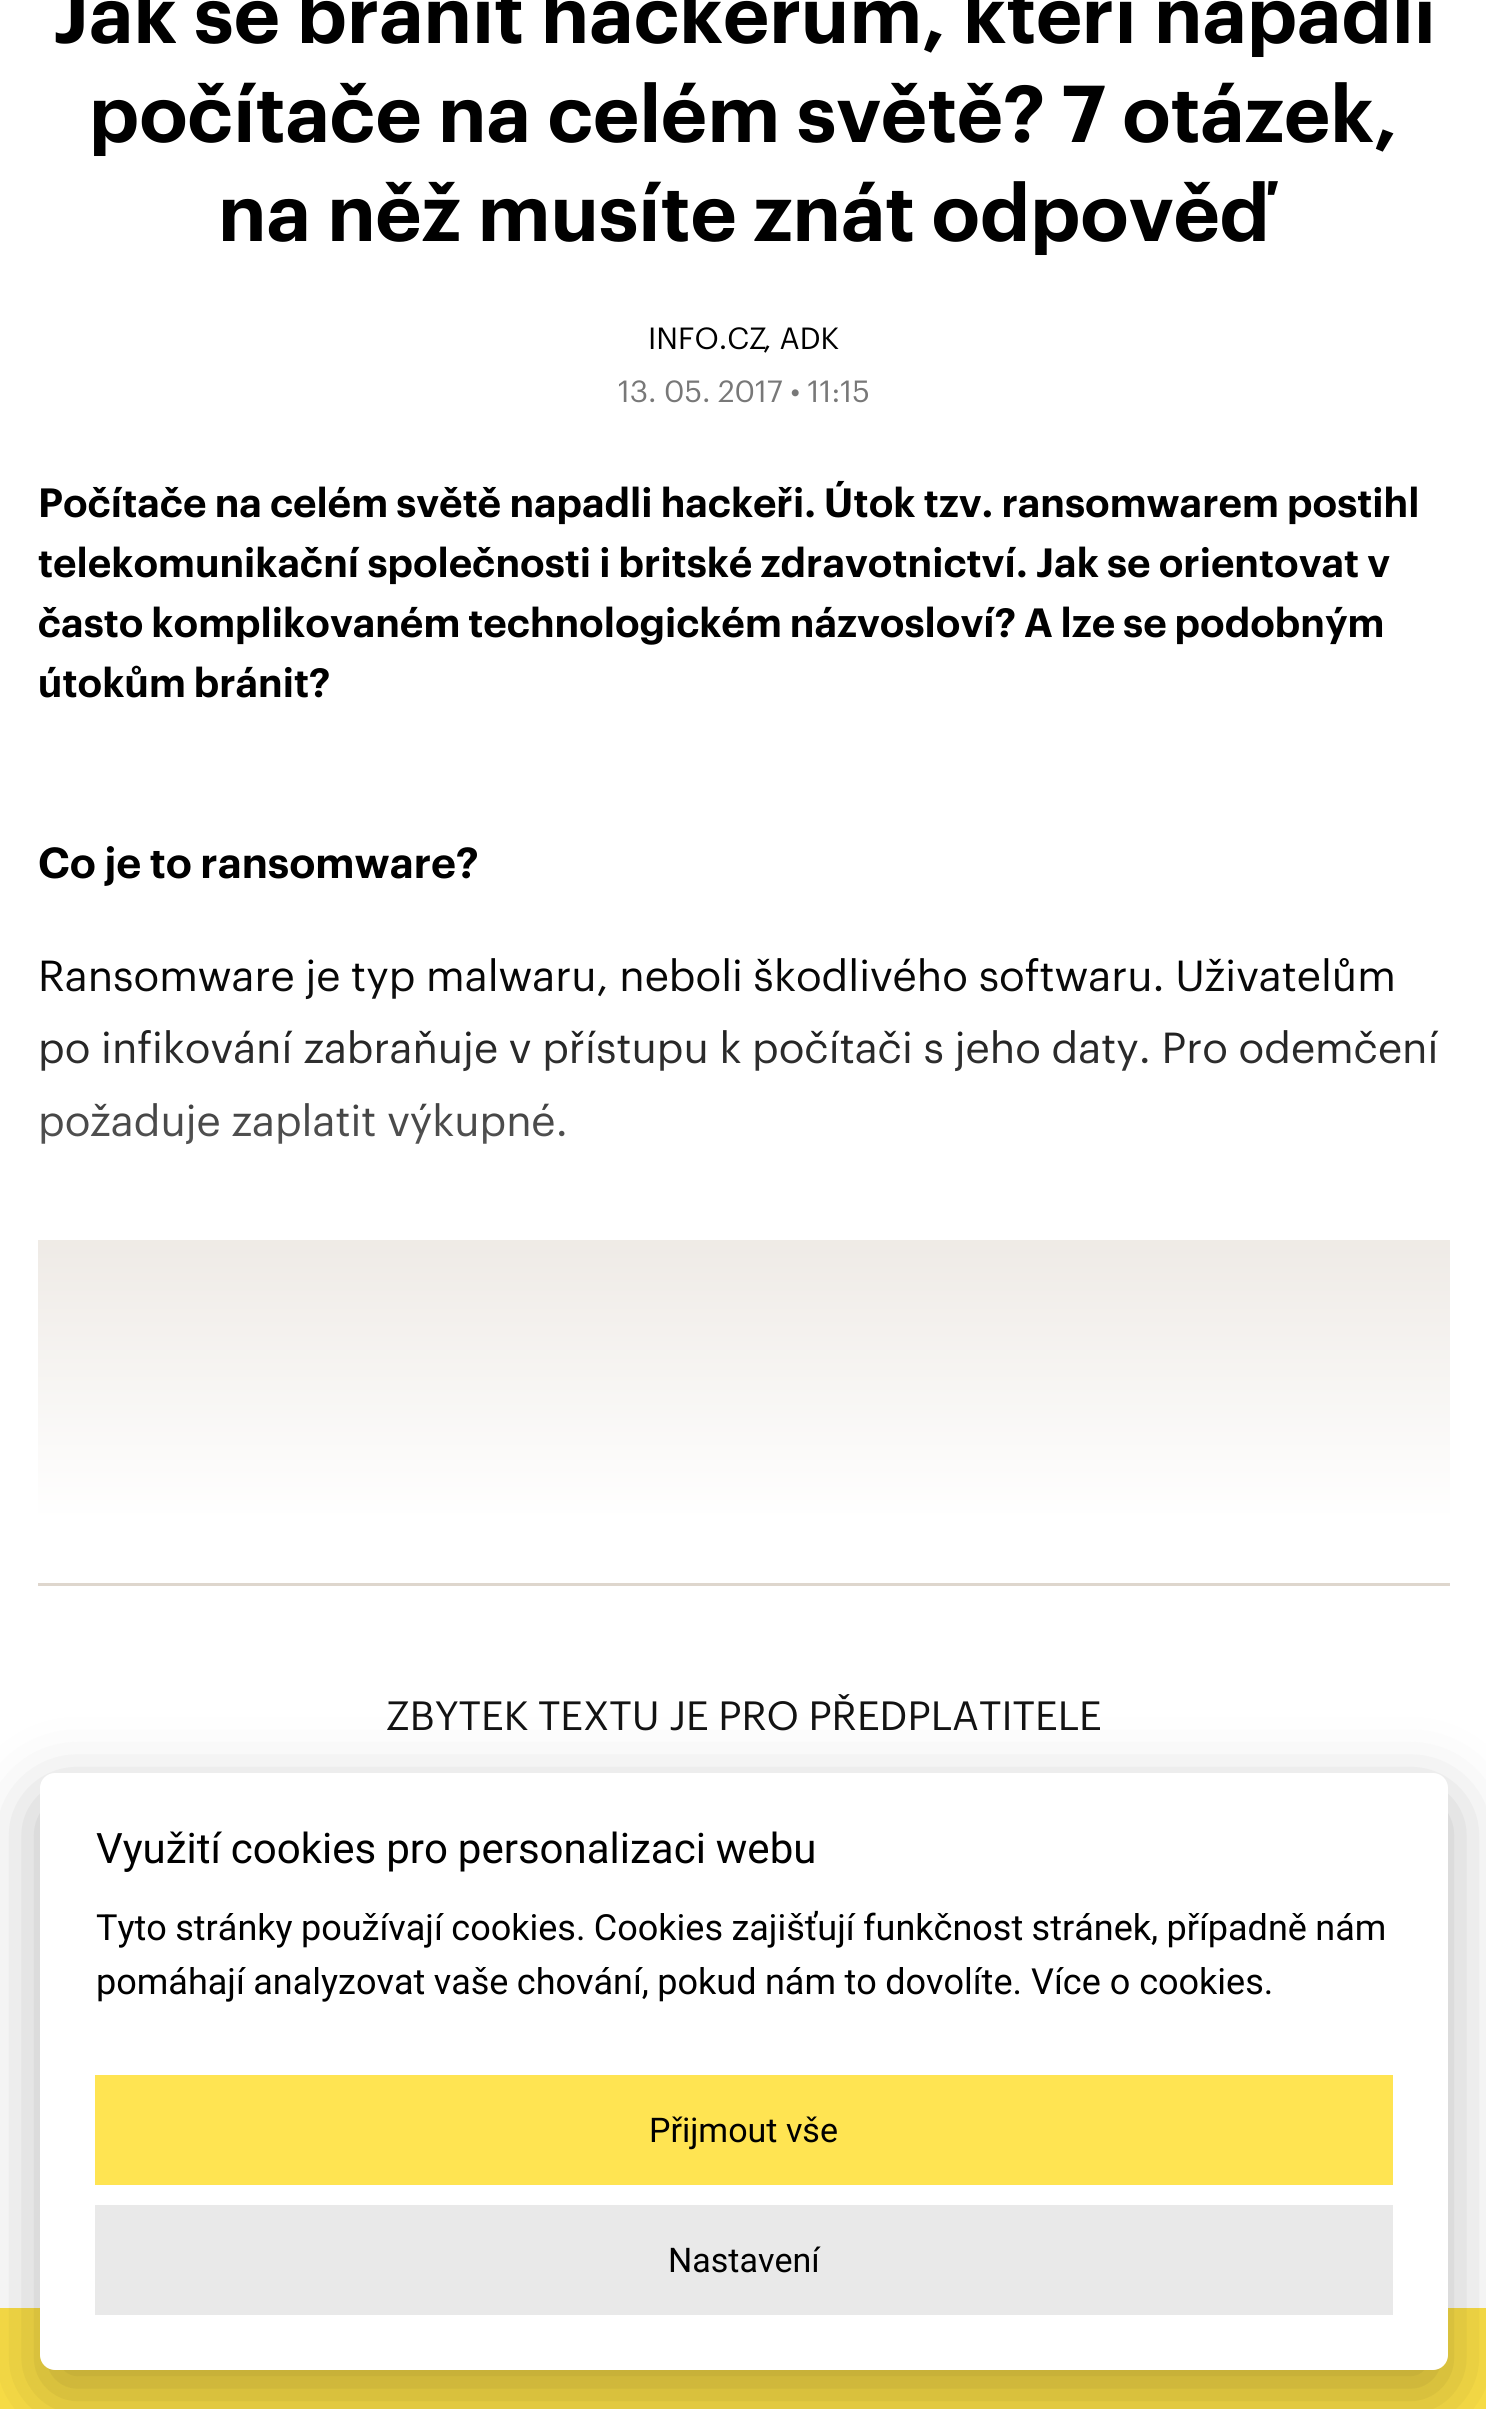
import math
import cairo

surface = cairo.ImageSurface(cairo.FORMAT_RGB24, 1486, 2409)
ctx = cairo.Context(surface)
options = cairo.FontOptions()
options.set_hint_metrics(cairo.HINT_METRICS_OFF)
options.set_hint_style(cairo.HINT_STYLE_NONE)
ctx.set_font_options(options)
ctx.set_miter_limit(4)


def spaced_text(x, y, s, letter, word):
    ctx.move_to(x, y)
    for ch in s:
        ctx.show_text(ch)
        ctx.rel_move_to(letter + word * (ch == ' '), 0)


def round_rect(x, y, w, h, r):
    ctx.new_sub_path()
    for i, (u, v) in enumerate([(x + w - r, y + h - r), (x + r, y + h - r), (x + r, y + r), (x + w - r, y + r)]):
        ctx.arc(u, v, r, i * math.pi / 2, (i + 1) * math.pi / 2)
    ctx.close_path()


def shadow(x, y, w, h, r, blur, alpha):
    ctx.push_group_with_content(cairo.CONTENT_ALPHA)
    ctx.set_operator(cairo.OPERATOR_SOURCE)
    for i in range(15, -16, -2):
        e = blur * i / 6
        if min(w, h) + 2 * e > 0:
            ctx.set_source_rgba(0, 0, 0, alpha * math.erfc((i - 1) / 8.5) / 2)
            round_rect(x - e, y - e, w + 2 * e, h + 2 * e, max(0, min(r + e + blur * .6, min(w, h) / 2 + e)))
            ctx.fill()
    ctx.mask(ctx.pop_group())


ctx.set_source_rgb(1, 1, 1)
ctx.paint()
ctx.select_font_face("Graphik SemiBold")
ctx.set_font_size(78.75)
ctx.set_source_rgb(0, 0, 0)
spaced_text(53, 43, "Jak se bránit hackerům, kteří napadli", 0, -0.5)
spaced_text(89, 142, "počítače na celém světě? 7 otázek,", 0, -1)
spaced_text(218, 241, "na něž musíte znát odpověď", 0, -1)
ctx.select_font_face("Graphik")
ctx.set_font_size(30)
ctx.move_to(648, 349)
ctx.show_text("INFO.CZ")
ctx.move_to(763, 349)
ctx.show_text(", ADK")
ctx.set_source_rgb(0.471, 0.471, 0.471)
spaced_text(618, 402, "13. 05. 2017 • 11:15", 0, -0.5)
ctx.select_font_face("Graphik SemiBold")
ctx.set_font_size(40)
ctx.set_source_rgb(0, 0, 0)
spaced_text(38, 517, "Počítače na celém světě napadli hackeři. Útok tzv. ransomwarem postihl", 0, -0.75)
spaced_text(38, 577, "telekomunikační společnosti i britské zdravotnictví. Jak se orientovat v", 0, -0.75)
spaced_text(38, 637, "často komplikovaném technologickém názvosloví? A lze se podobným", 0, -1)
spaced_text(38, 697, "útokům bránit?", 0, -1)
ctx.set_font_size(42.5)
spaced_text(38, 878, "Co je to ransomware?", 0, -1)
ctx.select_font_face("Graphik")
spaced_text(38, 991, "Ransomware je typ malwaru, neboli škodlivého softwaru. Uživatelům", 0, -0.5)
spaced_text(38, 1063, "po infikování zabraňuje v přístupu k počítači s jeho daty. Pro odemčení", 0, -0.5)
spaced_text(38, 1136, "požaduje zaplatit výkupné.", 0, -0.5)
ctx.set_source_rgb(0.871, 0.839, 0.804)
ctx.rectangle(38, 1240, 1412, 277)
ctx.fill()
gradient = cairo.LinearGradient(744, 1583, 744, 960)
gradient.add_color_stop_rgba(0.1, 1, 1, 1, 1)
gradient.add_color_stop_rgba(1, 1, 1, 1, 0)
ctx.set_source(gradient)
ctx.rectangle(38, 972, 1412, 545)
ctx.fill()
ctx.set_source_rgb(0.871, 0.839, 0.804)
ctx.rectangle(38, 1583, 1412, 3)
ctx.fill()
ctx.set_font_size(40)
ctx.set_source_rgb(0.078, 0.078, 0.078)
spaced_text(386, 1730, "ZBYTEK TEXTU JE PRO PŘEDPLATITELE", 0, -1)
ctx.set_source_rgb(0.988, 0.878, 0.278)
ctx.rectangle(0, 2308, 1486, 101)
ctx.fill()
ctx.set_source_rgb(0.008, 0.008, 0.012)
shadow(40, 1798, 1408, 597, 15, 37.5, 0.28)
ctx.set_source_rgb(1, 1, 1)
round_rect(40, 1773, 1408, 597, 15)
ctx.fill()
ctx.select_font_face("Roboto")
ctx.set_font_size(42)
ctx.set_source_rgb(0, 0, 0)
spaced_text(96, 1863, "Využití cookies pro personalizaci webu", 0, -0.5)
ctx.set_font_size(36)
spaced_text(96, 1940, "Tyto stránky používají cookies. Cookies zajišťují funkčnost stránek, případně nám", 0, -0.5)
spaced_text(96, 1994, "pomáhají analyzovat vaše chování, pokud nám to dovolíte.", 0, -0.5)
ctx.move_to(1031, 1994)
ctx.show_text("Více o cookies.")
ctx.set_source_rgb(1, 0.894, 0.322)
ctx.rectangle(95, 2075, 1298, 110)
ctx.fill()
ctx.set_font_size(34)
ctx.set_source_rgb(0, 0, 0)
ctx.move_to(649, 2142)
ctx.show_text("Přijmout vše")
ctx.set_source_rgb(0.914, 0.914, 0.914)
ctx.rectangle(95, 2205, 1298, 110)
ctx.fill()
ctx.set_source_rgb(0, 0, 0)
ctx.move_to(668, 2272)
ctx.show_text("Nastavení")
surface.write_to_png("page.png")
